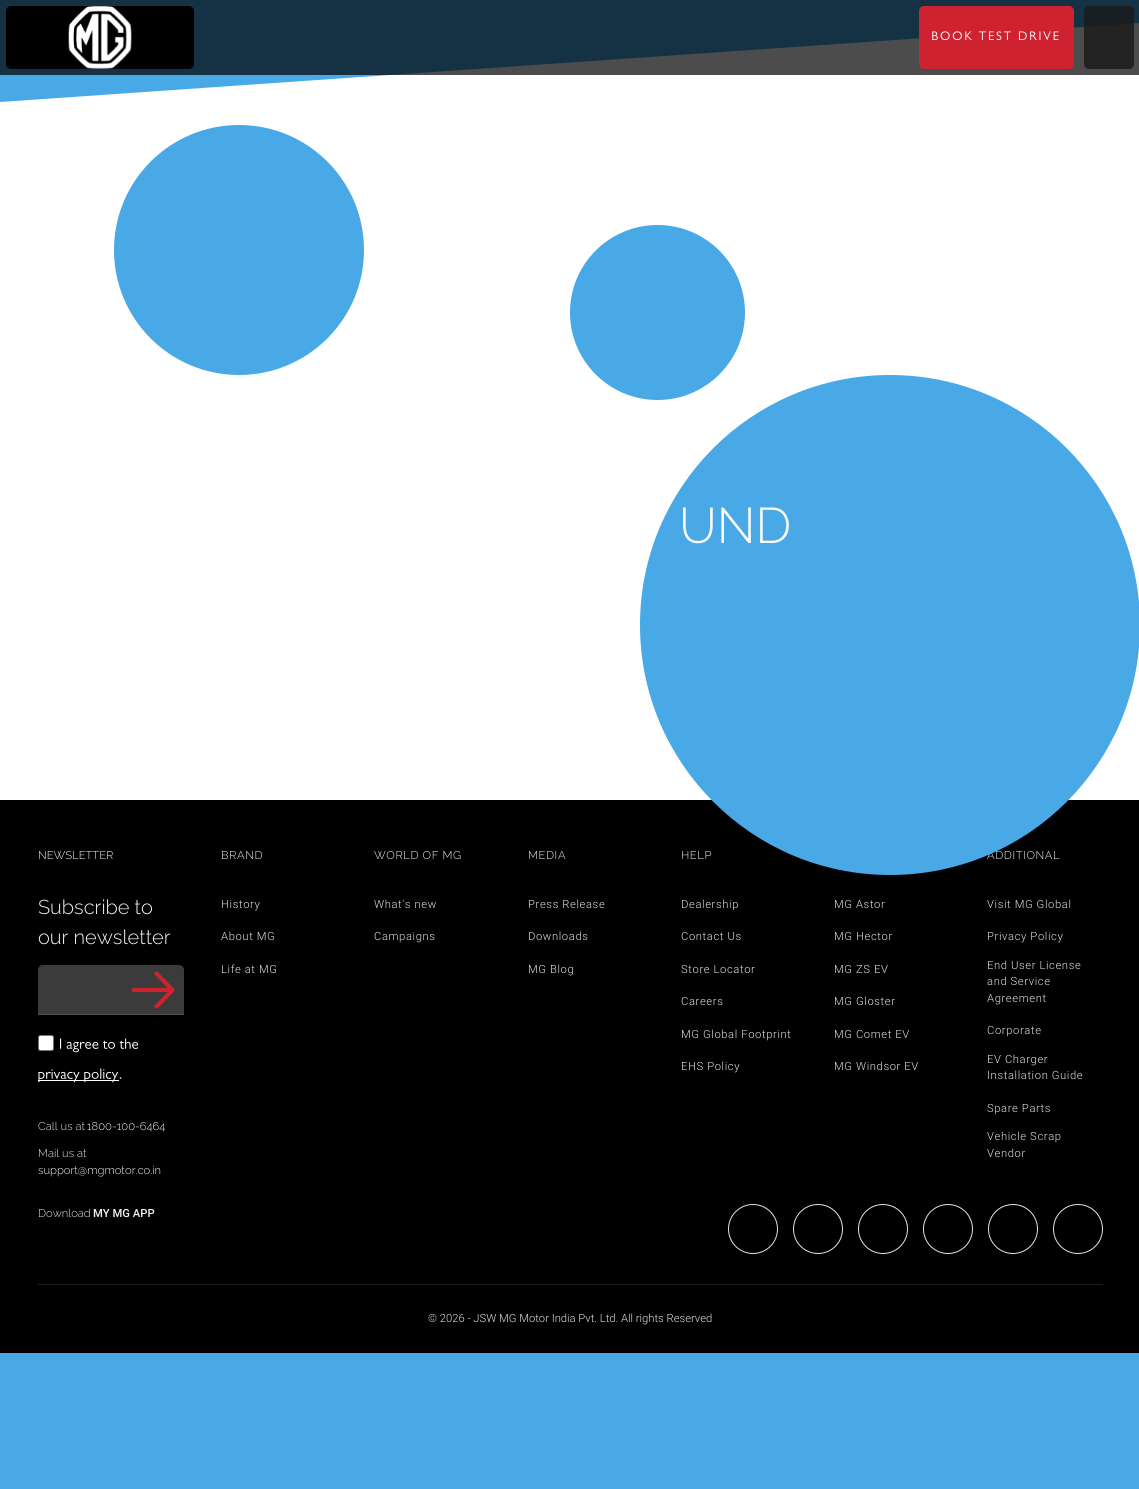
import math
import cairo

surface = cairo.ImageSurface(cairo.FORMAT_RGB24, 1139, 1489)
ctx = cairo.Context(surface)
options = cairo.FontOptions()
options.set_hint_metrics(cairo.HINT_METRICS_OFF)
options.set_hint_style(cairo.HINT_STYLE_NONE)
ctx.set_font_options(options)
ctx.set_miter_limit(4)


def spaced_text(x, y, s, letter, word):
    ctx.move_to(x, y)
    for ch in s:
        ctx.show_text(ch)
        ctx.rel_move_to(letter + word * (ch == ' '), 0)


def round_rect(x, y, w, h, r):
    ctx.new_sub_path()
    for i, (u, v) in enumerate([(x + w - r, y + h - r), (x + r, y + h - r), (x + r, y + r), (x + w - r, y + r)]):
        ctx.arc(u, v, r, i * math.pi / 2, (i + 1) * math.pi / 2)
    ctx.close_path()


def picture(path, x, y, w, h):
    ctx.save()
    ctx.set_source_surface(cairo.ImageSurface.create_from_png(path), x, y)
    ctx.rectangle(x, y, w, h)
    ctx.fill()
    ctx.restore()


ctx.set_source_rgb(0.282, 0.663, 0.902)
ctx.paint()
ctx.set_source_rgb(1, 1, 1)
ctx.rectangle(0, 148, 1139, 652)
ctx.fill()
ctx.new_path()
ctx.move_to(0, 102)
ctx.line_to(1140, 23)
ctx.line_to(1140, 148)
ctx.line_to(0, 227)
ctx.close_path()
ctx.fill()
ctx.set_source_rgba(0, 0, 0, 0.7)
ctx.rectangle(0, 0, 1139, 75)
ctx.fill()
ctx.set_source_rgb(0, 0, 0)
round_rect(6, 6, 188, 63, 5)
ctx.fill()
picture("img1.png", 68, 6, 64, 63)
ctx.set_source_rgb(0.812, 0.133, 0.188)
round_rect(919, 6, 155, 63, 5)
ctx.fill()
picture("img2.png", 932, 31, 127, 10)
ctx.set_source_rgba(0.098, 0.098, 0.098, 0.8)
round_rect(1084, 6, 50, 63, 5)
ctx.fill()
ctx.set_source_rgb(0.282, 0.663, 0.902)
ctx.arc(239, 250, 125, 0, 2 * math.pi)
ctx.fill()
ctx.set_source_rgb(0, 0, 0)
ctx.rectangle(0, 800, 1139, 553)
ctx.fill()
ctx.select_font_face("Raleway Light")
ctx.set_font_size(11.25)
ctx.set_source_rgb(0.949, 0.949, 0.949)
spaced_text(681, 859, "HELP", 0.6, 0)
spaced_text(987, 859, "ADDITIONAL", 0.6, 0)
ctx.set_source_rgb(0.282, 0.663, 0.902)
ctx.new_path()
ctx.arc(890, 625, 250, 0, 2 * math.pi)
ctx.fill()
ctx.arc(657.5, 312.5, 87.5, 0, 2 * math.pi)
ctx.fill()
ctx.set_font_size(50)
ctx.set_source_rgb(1, 1, 1)
ctx.move_to(679, 543)
ctx.show_text("UND")
ctx.set_font_size(11.25)
ctx.set_source_rgb(0.949, 0.949, 0.949)
ctx.move_to(38, 859)
ctx.show_text("NEWSLETTER")
ctx.set_font_size(20)
ctx.move_to(38, 914)
ctx.show_text("Subscribe to")
ctx.move_to(38, 944)
ctx.show_text("our newsletter")
ctx.set_source_rgb(0.231, 0.231, 0.231)
ctx.new_path()
ctx.move_to(43, 965)
ctx.line_to(179, 965)
ctx.curve_to(182, 965, 184, 967, 184, 970)
ctx.line_to(184, 1015)
ctx.line_to(38, 1015)
ctx.line_to(38, 970)
ctx.curve_to(38, 967, 40, 965, 43, 965)
ctx.close_path()
ctx.fill()
ctx.set_source_rgb(0.31, 0.31, 0.31)
ctx.rectangle(38, 1014, 146, 1)
ctx.fill()
ctx.new_path()
ctx.move_to(156.5, 1006.5)
ctx.line_to(172.5, 990)
ctx.move_to(172.5, 990)
ctx.line_to(156.5, 973.5)
ctx.move_to(172.5, 990)
ctx.line_to(133.5, 990)
ctx.set_source_rgb(0.812, 0.133, 0.188)
ctx.set_line_width(4.1)
ctx.set_line_cap(cairo.LINE_CAP_ROUND)
ctx.set_line_join(cairo.LINE_JOIN_ROUND)
ctx.stroke()
ctx.set_source_rgb(1, 1, 1)
round_rect(38.5, 1035.5, 15, 15, 2)
ctx.fill_preserve()
ctx.set_source_rgb(0.463, 0.463, 0.463)
ctx.set_line_width(1)
ctx.set_line_cap(cairo.LINE_CAP_BUTT)
ctx.set_line_join(cairo.LINE_JOIN_MITER)
ctx.stroke()
picture("img3.png", 60, 1038, 79, 15)
ctx.set_source_rgb(1, 1, 1)
ctx.rectangle(38, 1080, 81, 1)
ctx.fill()
picture("img4.png", 38, 1068, 81, 15)
picture("img5.png", 119, 1077, 3, 2)
ctx.set_font_size(11.25)
ctx.set_source_rgb(0.882, 0.882, 0.882)
ctx.move_to(38, 1130)
ctx.show_text("Call us at")
ctx.set_source_rgb(0.949, 0.949, 0.949)
ctx.move_to(87, 1130)
ctx.show_text("1800-100-6464")
ctx.set_source_rgb(0.882, 0.882, 0.882)
ctx.move_to(38, 1157)
ctx.show_text("Mail us at")
ctx.set_source_rgb(0.949, 0.949, 0.949)
ctx.move_to(38, 1174)
ctx.show_text("support@mgmotor.co.in")
spaced_text(221, 859, "BRAND", 0.6, 0)
ctx.select_font_face("Roboto Light")
ctx.set_source_rgb(0.882, 0.882, 0.882)
spaced_text(221, 908, "History", 0.6, 0)
spaced_text(221, 940, "About MG", 0.6, 0)
spaced_text(221, 973, "Life at MG", 0.6, 0)
ctx.select_font_face("Raleway Light")
ctx.set_source_rgb(0.949, 0.949, 0.949)
spaced_text(374, 859, "WORLD OF MG", 0.6, 0)
ctx.select_font_face("Roboto Light")
ctx.set_source_rgb(0.882, 0.882, 0.882)
spaced_text(374, 908, "What's new", 0.6, 0)
spaced_text(374, 940, "Campaigns", 0.6, 0)
ctx.select_font_face("Raleway Light")
ctx.set_source_rgb(0.949, 0.949, 0.949)
spaced_text(528, 859, "MEDIA", 0.6, 0)
ctx.select_font_face("Roboto Light")
ctx.set_source_rgb(0.882, 0.882, 0.882)
spaced_text(528, 908, "Press Release", 0.6, 0)
spaced_text(528, 940, "Downloads", 0.6, 0)
spaced_text(528, 973, "MG Blog", 0.6, 0)
spaced_text(681, 908, "Dealership", 0.6, 0)
spaced_text(681, 940, "Contact Us", 0.6, 0)
spaced_text(681, 973, "Store Locator", 0.6, 0)
spaced_text(681, 1005, "Careers", 0.6, 0)
spaced_text(681, 1038, "MG Global Footprint", 0.6, 0)
spaced_text(681, 1070, "EHS Policy", 0.6, 0)
spaced_text(834, 908, "MG Astor", 0.6, 0)
spaced_text(834, 940, "MG Hector", 0.6, 0)
spaced_text(834, 973, "MG ZS EV", 0.6, 0)
spaced_text(834, 1005, "MG Gloster", 0.6, 0)
spaced_text(834, 1038, "MG Comet EV", 0.6, 0)
spaced_text(834, 1070, "MG Windsor EV", 0.6, 0)
spaced_text(987, 908, "Visit MG Global", 0.6, 0)
spaced_text(987, 940, "Privacy Policy", 0.6, 0)
spaced_text(987, 969, "End User License", 0.6, 0)
spaced_text(987, 985, "and Service", 0.6, 0)
spaced_text(987, 1002, "Agreement", 0.6, 0)
spaced_text(987, 1034, "Corporate", 0.6, 0)
spaced_text(987, 1063, "EV Charger", 0.6, 0)
spaced_text(987, 1079, "Installation Guide", 0.6, 0)
spaced_text(987, 1112, "Spare Parts", 0.6, 0)
spaced_text(987, 1140, "Vehicle Scrap", 0.6, 0)
spaced_text(987, 1157, "Vendor", 0.6, 0)
ctx.select_font_face("Raleway Light")
ctx.move_to(38, 1217)
ctx.show_text("Download")
ctx.select_font_face("Roboto Medium")
ctx.set_source_rgb(0.949, 0.949, 0.949)
ctx.move_to(93, 1217)
ctx.show_text("MY MG APP")
ctx.new_path()
ctx.arc(753, 1229, 24.5, 0, 2 * math.pi)
ctx.set_source_rgb(0.882, 0.882, 0.882)
ctx.stroke()
ctx.arc(818, 1229, 24.5, 0, 2 * math.pi)
ctx.stroke()
ctx.arc(883, 1229, 24.5, 0, 2 * math.pi)
ctx.stroke()
ctx.arc(948, 1229, 24.5, 0, 2 * math.pi)
ctx.stroke()
ctx.arc(1013, 1229, 24.5, 0, 2 * math.pi)
ctx.stroke()
ctx.arc(1078, 1229, 24.5, 0, 2 * math.pi)
ctx.stroke()
ctx.set_source_rgb(0.11, 0.11, 0.11)
ctx.rectangle(38, 1284, 1065, 1)
ctx.fill()
ctx.select_font_face("Roboto Light")
ctx.set_source_rgb(0.882, 0.882, 0.882)
ctx.move_to(428, 1322)
ctx.show_text("© 2026 - JSW MG Motor India Pvt. Ltd. All rights Reserved")
surface.write_to_png("page.png")
